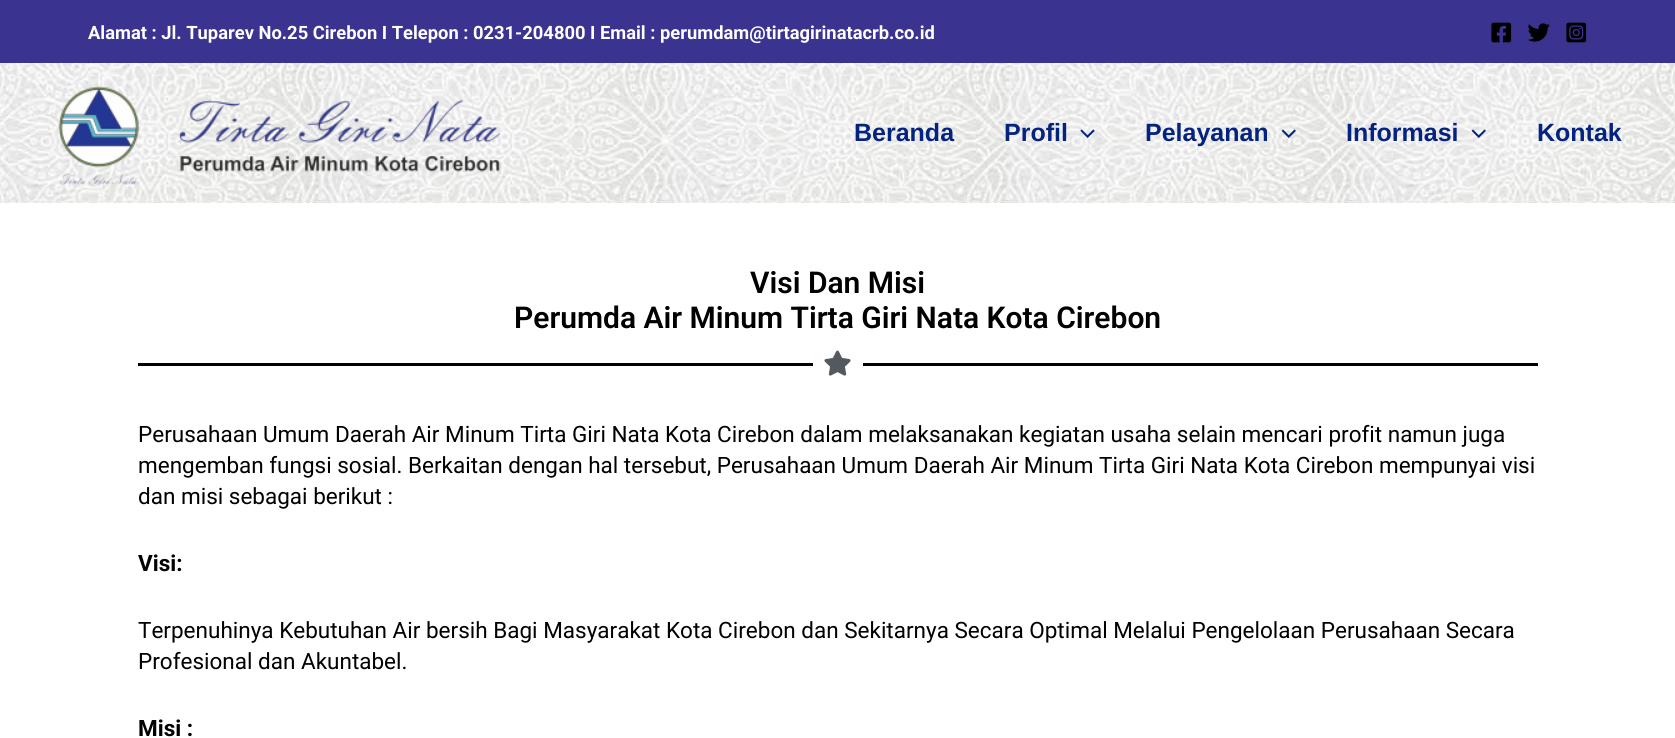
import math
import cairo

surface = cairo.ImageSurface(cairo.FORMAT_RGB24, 1675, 738)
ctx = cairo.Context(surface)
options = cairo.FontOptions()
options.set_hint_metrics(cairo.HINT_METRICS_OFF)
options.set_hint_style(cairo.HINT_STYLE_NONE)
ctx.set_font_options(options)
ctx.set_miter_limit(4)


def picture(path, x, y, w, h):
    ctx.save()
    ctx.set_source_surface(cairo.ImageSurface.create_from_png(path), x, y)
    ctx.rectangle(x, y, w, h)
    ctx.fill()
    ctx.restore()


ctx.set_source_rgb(1, 1, 1)
ctx.paint()
ctx.set_source_rgb(0.231, 0.2, 0.565)
ctx.rectangle(0, 0, 1675, 63)
ctx.fill()
ctx.select_font_face("Roboto", cairo.FONT_SLANT_NORMAL, cairo.FONT_WEIGHT_BOLD)
ctx.set_font_size(18.35)
ctx.set_source_rgb(1, 1, 1)
ctx.move_to(88, 39)
ctx.show_text("Alamat : Jl. Tuparev No.25 Cirebon I Telepon : 0231-204800 I Email : perumdam@tirtagirinatacrb.co.id")
picture("img1.png", 1491, 22, 21, 21)
picture("img2.png", 1528, 23, 22, 19)
picture("img3.png", 1566, 22, 21, 21)
picture("img4.png", 0, 63, 1675, 140)
ctx.set_source_rgb(0.918, 0.918, 0.918)
ctx.rectangle(0, 201, 1675, 1)
ctx.fill()
picture("img5.png", 58, 86, 443, 99)
ctx.select_font_face("Liberation Sans", cairo.FONT_SLANT_NORMAL, cairo.FONT_WEIGHT_BOLD)
ctx.set_font_size(25)
ctx.set_source_rgb(0.016, 0.133, 0.498)
ctx.move_to(854, 141)
ctx.show_text("Beranda")
ctx.move_to(1004, 141)
ctx.show_text("Profil")
picture("img6.png", 1080, 129, 15, 9)
ctx.move_to(1145, 141)
ctx.show_text("Pelayanan")
picture("img7.png", 1281, 129, 15, 9)
ctx.move_to(1346, 141)
ctx.show_text("Informasi")
picture("img8.png", 1471, 129, 15, 9)
ctx.move_to(1537, 141)
ctx.show_text("Kontak")
ctx.select_font_face("Roboto SemiBold")
ctx.set_font_size(30)
ctx.set_source_rgb(0, 0, 0)
ctx.move_to(750, 293)
ctx.show_text("Visi Dan Misi")
ctx.move_to(514, 328)
ctx.show_text("Perumda Air Minum Tirta Giri Nata Kota Cirebon")
ctx.rectangle(138, 363, 675, 3)
ctx.fill()
picture("img9.png", 824, 350, 27, 26)
ctx.rectangle(863, 363, 675, 3)
ctx.fill()
ctx.select_font_face("Roboto")
ctx.set_font_size(22.5)
ctx.move_to(138, 442)
ctx.show_text("Perusahaan Umum Daerah Air Minum Tirta Giri Nata Kota Cirebon dalam melaksanakan kegiatan usaha selain mencari profit namun juga")
ctx.move_to(138, 473)
ctx.show_text("mengemban fungsi sosial. Berkaitan dengan hal tersebut, Perusahaan Umum Daerah Air Minum Tirta Giri Nata Kota Cirebon mempunyai visi")
ctx.move_to(138, 504)
ctx.show_text("dan misi sebagai berikut :")
ctx.select_font_face("Roboto", cairo.FONT_SLANT_NORMAL, cairo.FONT_WEIGHT_BOLD)
ctx.move_to(138, 571)
ctx.show_text("Visi:")
ctx.select_font_face("Roboto")
ctx.move_to(138, 638)
ctx.show_text("Terpenuhinya Kebutuhan Air bersih Bagi Masyarakat Kota Cirebon dan Sekitarnya Secara Optimal Melalui Pengelolaan Perusahaan Secara")
ctx.move_to(138, 669)
ctx.show_text("Profesional dan Akuntabel.")
ctx.select_font_face("Roboto", cairo.FONT_SLANT_NORMAL, cairo.FONT_WEIGHT_BOLD)
ctx.move_to(138, 736)
ctx.show_text("Misi :")
surface.write_to_png("page.png")
